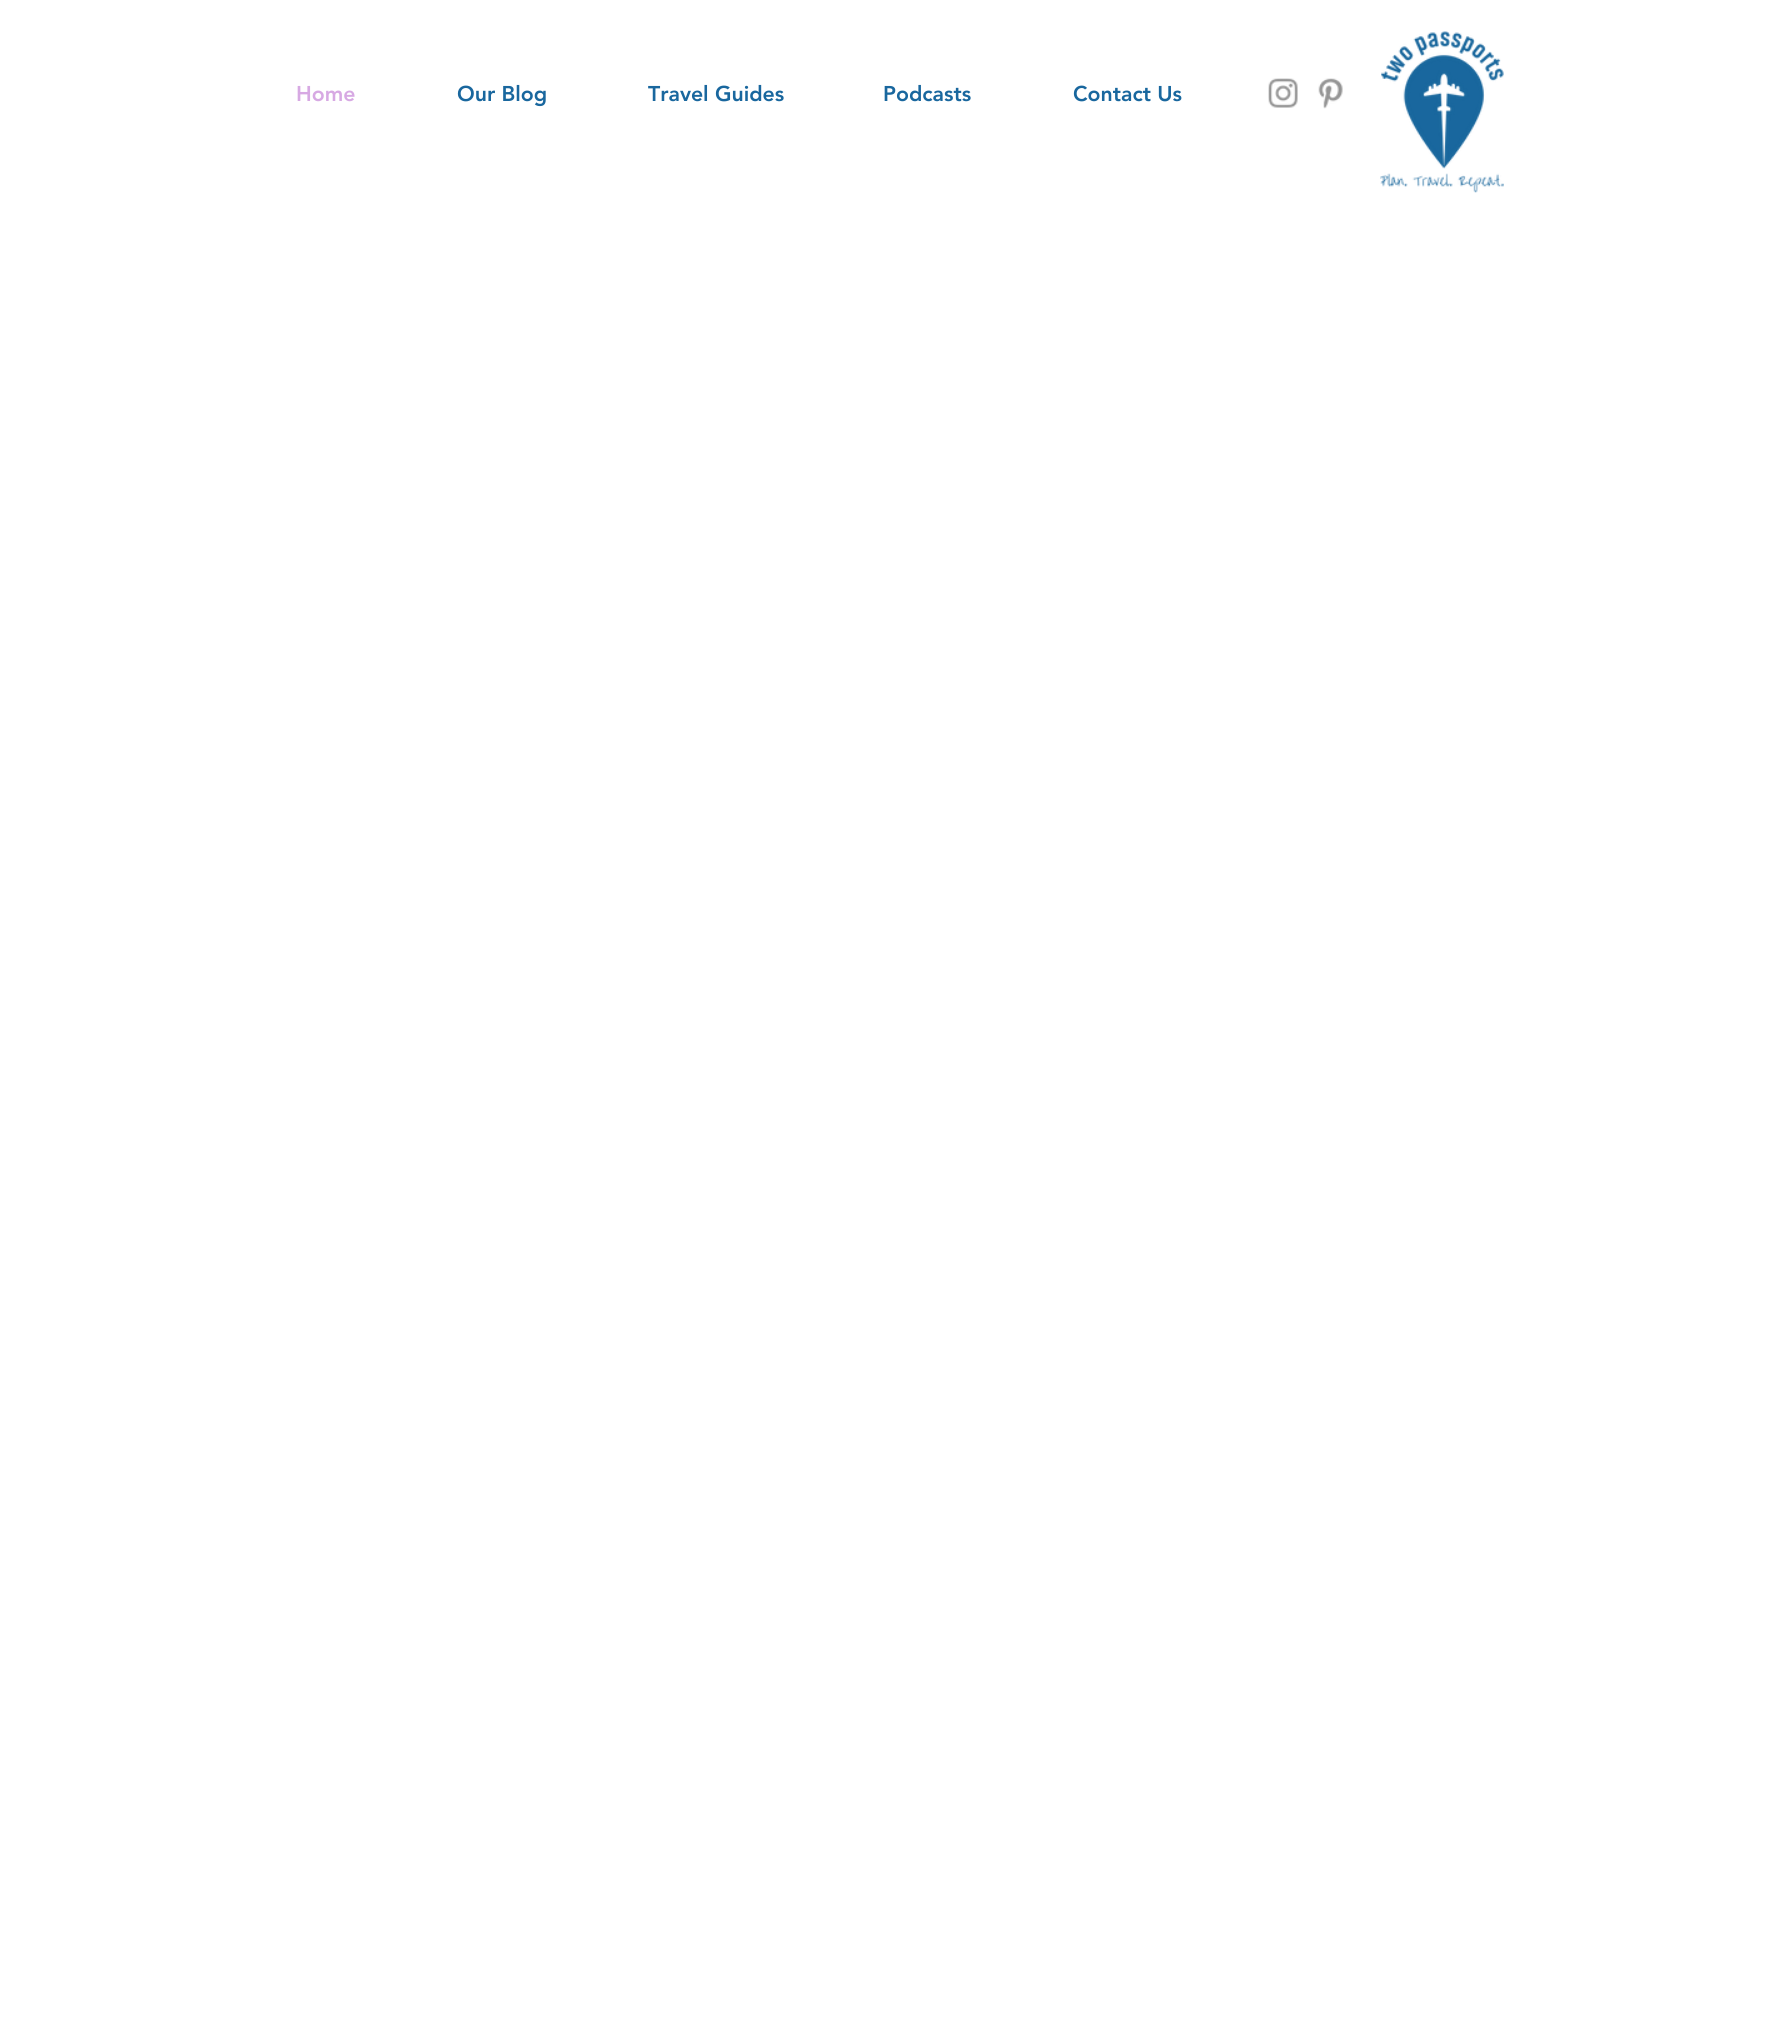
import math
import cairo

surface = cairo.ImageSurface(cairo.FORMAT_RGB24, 1778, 2039)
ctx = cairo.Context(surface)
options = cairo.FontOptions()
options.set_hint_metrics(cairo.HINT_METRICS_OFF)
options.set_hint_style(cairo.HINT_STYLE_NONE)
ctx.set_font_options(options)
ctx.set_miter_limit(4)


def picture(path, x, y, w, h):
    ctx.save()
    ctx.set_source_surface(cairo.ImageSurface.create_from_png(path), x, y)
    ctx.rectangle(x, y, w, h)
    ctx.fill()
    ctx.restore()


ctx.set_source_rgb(1, 1, 1)
ctx.paint()
ctx.select_font_face("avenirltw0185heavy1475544 Black")
ctx.set_font_size(21.25)
ctx.set_source_rgb(0.843, 0.663, 0.89)
ctx.move_to(296, 101)
ctx.show_text("Home")
ctx.set_source_rgb(0.098, 0.404, 0.62)
ctx.move_to(457, 101)
ctx.show_text("Our Blog")
ctx.move_to(648, 101)
ctx.show_text("Travel Guides")
ctx.move_to(883, 101)
ctx.show_text("Podcasts")
ctx.move_to(1073, 101)
ctx.show_text("Contact Us")
picture("img1.png", 1268, 78, 30, 30)
picture("img2.png", 1318, 78, 25, 31)
picture("img3.png", 1380, 31, 124, 162)
surface.write_to_png("page.png")
